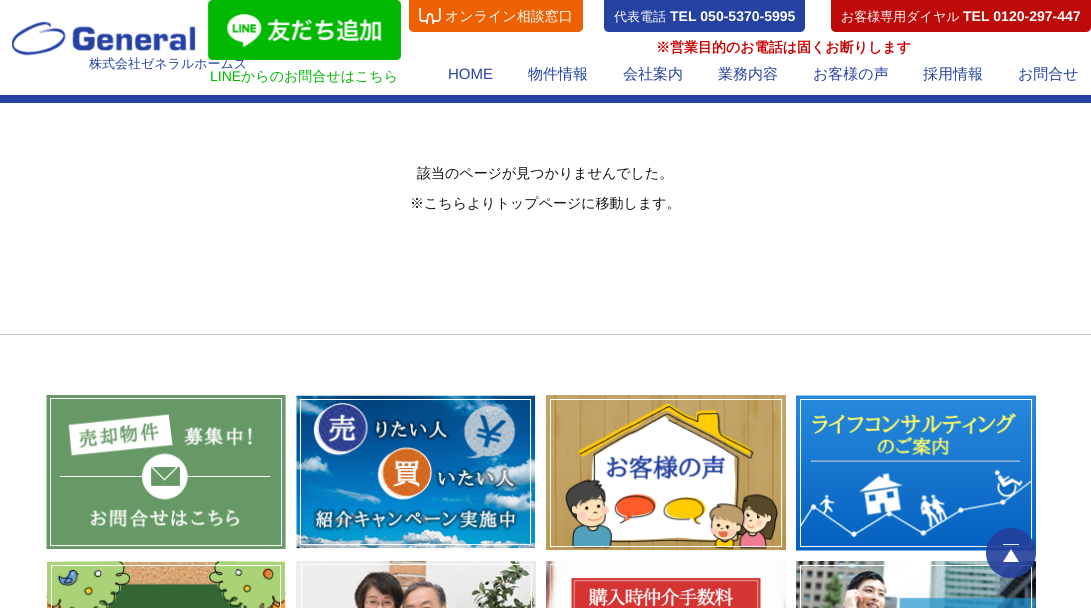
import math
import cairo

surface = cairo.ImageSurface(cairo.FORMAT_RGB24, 1091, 608)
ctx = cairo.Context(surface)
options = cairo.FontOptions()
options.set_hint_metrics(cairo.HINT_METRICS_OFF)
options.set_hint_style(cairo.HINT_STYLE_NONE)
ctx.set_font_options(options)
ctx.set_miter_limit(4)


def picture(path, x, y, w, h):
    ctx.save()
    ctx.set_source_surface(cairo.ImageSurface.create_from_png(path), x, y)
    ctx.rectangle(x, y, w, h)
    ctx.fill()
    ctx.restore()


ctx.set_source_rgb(1, 1, 1)
ctx.paint()
ctx.set_source_rgb(0.145, 0.259, 0.639)
ctx.rectangle(0, 95, 1091, 8)
ctx.fill()
picture("img1.png", 12, 21, 184, 35)
ctx.select_font_face("WenQuanYi Zen Hei Medium")
ctx.set_font_size(13)
ctx.move_to(89, 68)
ctx.show_text("株式会社ゼネラルホームズ")
ctx.new_path()
ctx.move_to(604, 0)
ctx.line_to(805, 0)
ctx.line_to(805, 27)
ctx.curve_to(805, 30, 803, 32, 800, 32)
ctx.line_to(609, 32)
ctx.curve_to(606, 32, 604, 30, 604, 27)
ctx.close_path()
ctx.fill()
ctx.set_source_rgb(1, 1, 1)
ctx.move_to(614, 21)
ctx.show_text("代表電話")
ctx.select_font_face("Liberation Sans", cairo.FONT_SLANT_NORMAL, cairo.FONT_WEIGHT_BOLD)
ctx.set_font_size(14)
ctx.move_to(670, 21)
ctx.show_text("TEL 050-5370-5995")
ctx.set_source_rgb(0.745, 0.039, 0.039)
ctx.new_path()
ctx.move_to(831, 0)
ctx.line_to(1091, 0)
ctx.line_to(1091, 27)
ctx.curve_to(1091, 30, 1089, 32, 1086, 32)
ctx.line_to(836, 32)
ctx.curve_to(833, 32, 831, 30, 831, 27)
ctx.close_path()
ctx.fill()
ctx.select_font_face("WenQuanYi Zen Hei Medium")
ctx.set_font_size(13)
ctx.set_source_rgb(1, 1, 1)
ctx.move_to(841, 21)
ctx.show_text("お客様専用ダイヤル")
ctx.select_font_face("Liberation Sans", cairo.FONT_SLANT_NORMAL, cairo.FONT_WEIGHT_BOLD)
ctx.set_font_size(14)
ctx.move_to(963, 21)
ctx.show_text("TEL 0120-297-447")
ctx.select_font_face("WenQuanYi Zen Hei", cairo.FONT_SLANT_NORMAL, cairo.FONT_WEIGHT_BOLD)
ctx.set_source_rgb(0.8, 0, 0)
ctx.move_to(656, 52)
ctx.show_text("※営業目的のお電話は固くお断りします")
picture("img2.png", 207, 0, 194, 60)
ctx.select_font_face("Liberation Sans")
ctx.set_source_rgb(0, 0.725, 0)
ctx.move_to(210, 81)
ctx.show_text("LINE")
ctx.select_font_face("WenQuanYi Zen Hei Medium")
ctx.move_to(241, 81)
ctx.show_text("からのお問合せはこちら")
ctx.select_font_face("Liberation Sans")
ctx.set_font_size(15)
ctx.set_source_rgb(0.145, 0.259, 0.639)
ctx.move_to(448, 79)
ctx.show_text("HOME")
ctx.select_font_face("WenQuanYi Zen Hei Medium")
ctx.move_to(528, 79)
ctx.show_text("物件情報")
ctx.move_to(623, 79)
ctx.show_text("会社案内")
ctx.move_to(718, 79)
ctx.show_text("業務内容")
ctx.move_to(813, 79)
ctx.show_text("お客様の声")
ctx.move_to(923, 79)
ctx.show_text("採用情報")
ctx.move_to(1018, 79)
ctx.show_text("お問合せ")
ctx.set_source_rgb(0.929, 0.38, 0.012)
ctx.new_path()
ctx.move_to(409, 0)
ctx.line_to(583, 0)
ctx.line_to(583, 27)
ctx.curve_to(583, 30, 581, 32, 578, 32)
ctx.line_to(414, 32)
ctx.curve_to(411, 32, 409, 30, 409, 27)
ctx.close_path()
ctx.fill()
picture("img3.png", 419, 8, 22, 16)
ctx.set_font_size(14)
ctx.set_source_rgb(1, 1, 1)
ctx.move_to(445, 21)
ctx.show_text("オンライン相談窓口")
ctx.set_source_rgb(0.067, 0.067, 0.067)
ctx.move_to(417, 178)
ctx.show_text("該当のページが見つかりませんでした。")
ctx.move_to(410, 208)
ctx.show_text("※こちらよりトップページに移動します。")
ctx.set_source_rgb(0.78, 0.78, 0.78)
ctx.rectangle(0, 334, 1091, 1)
ctx.fill()
picture("img4.png", 46, 395, 240, 154)
picture("img5.png", 296, 395, 240, 154)
picture("img6.png", 546, 395, 240, 155)
picture("img7.png", 796, 395, 240, 156)
picture("img8.png", 46, 561, 240, 47)
picture("img9.png", 296, 561, 240, 47)
picture("img10.png", 546, 561, 240, 47)
picture("img11.png", 796, 561, 240, 47)
picture("img12.png", 986, 528, 50, 50)
surface.write_to_png("page.png")
